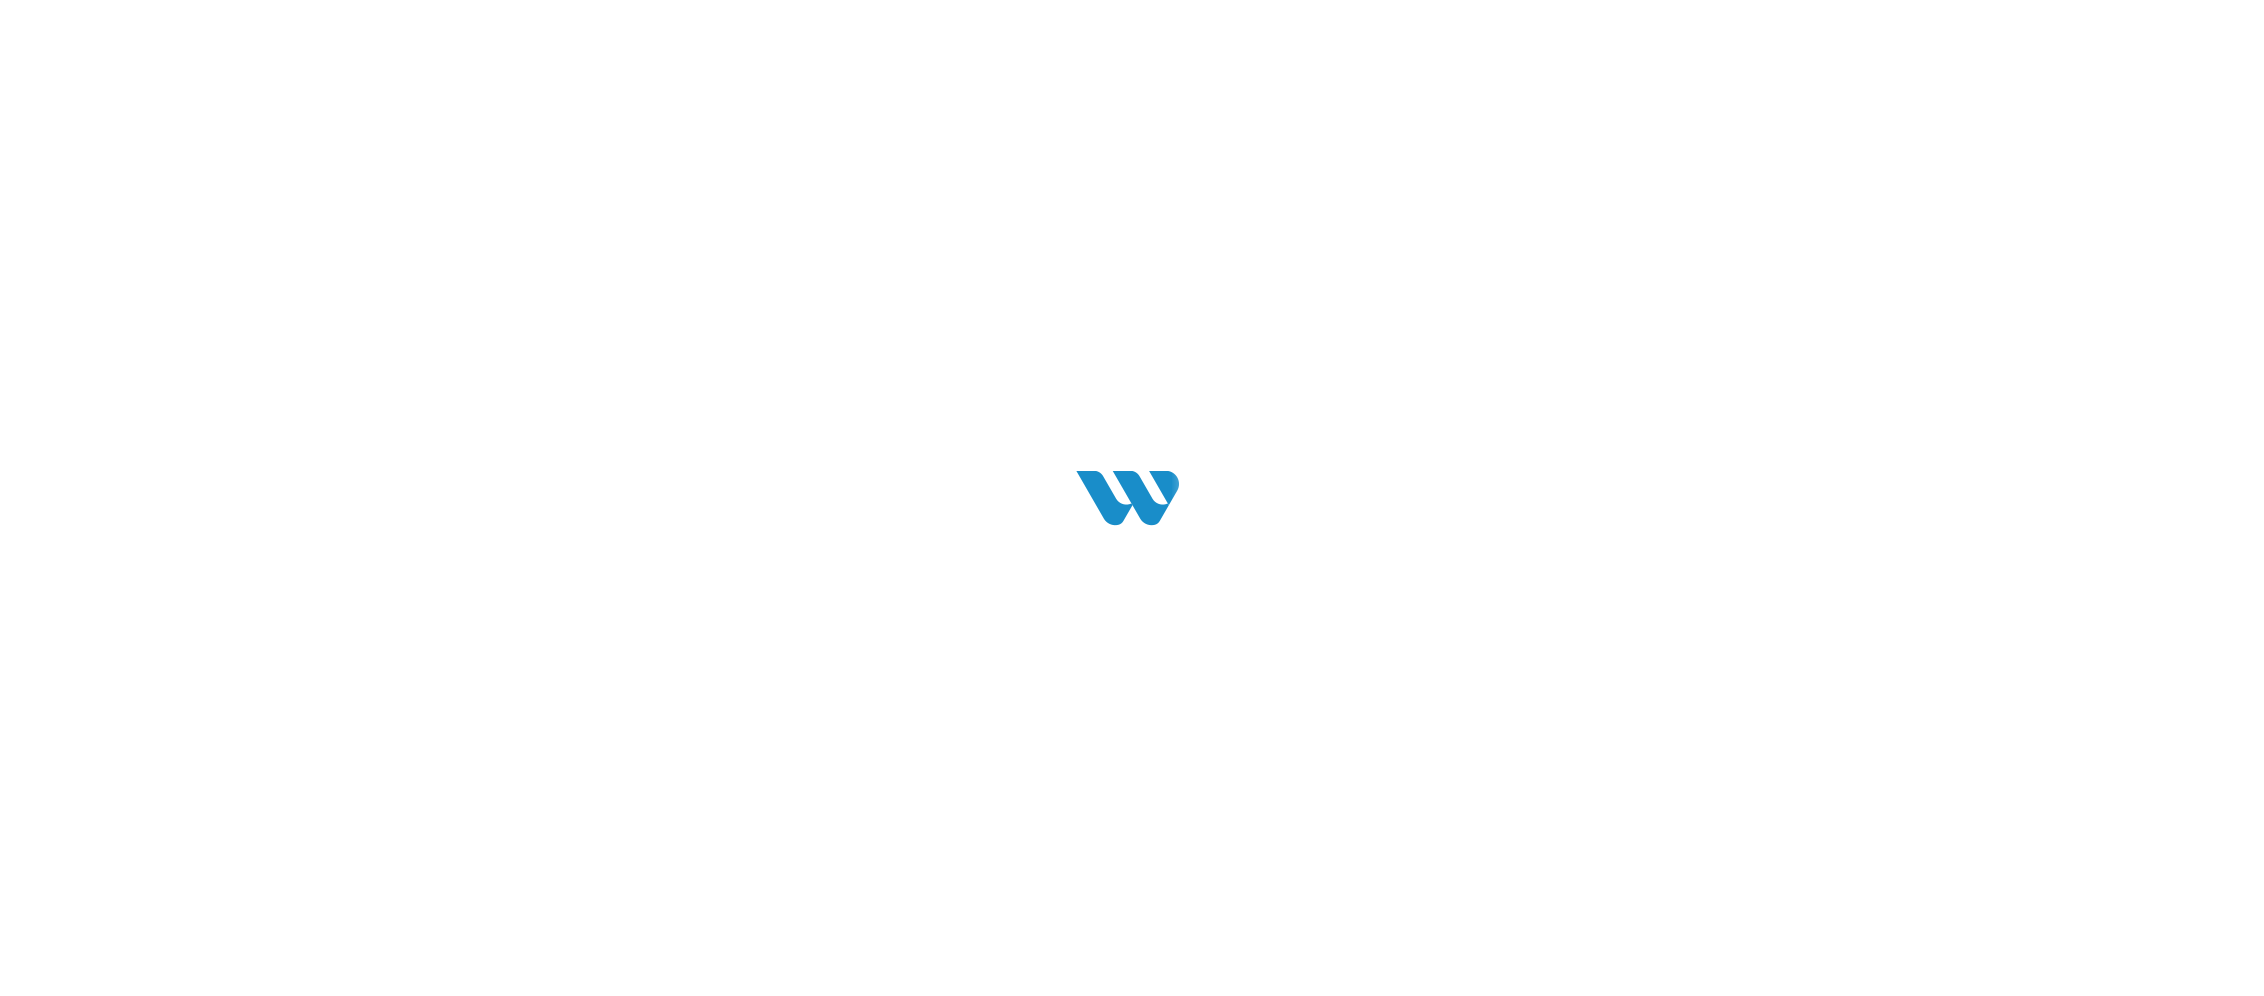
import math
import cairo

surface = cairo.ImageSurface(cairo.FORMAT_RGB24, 2264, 996)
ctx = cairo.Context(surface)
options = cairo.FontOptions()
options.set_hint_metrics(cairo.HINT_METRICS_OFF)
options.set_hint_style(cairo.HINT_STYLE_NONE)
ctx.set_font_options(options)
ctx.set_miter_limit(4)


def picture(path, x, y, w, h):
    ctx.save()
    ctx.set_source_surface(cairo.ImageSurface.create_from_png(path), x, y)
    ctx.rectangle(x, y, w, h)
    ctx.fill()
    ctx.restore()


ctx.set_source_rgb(1, 1, 1)
ctx.paint()
picture("img1.png", 1076, 471, 103, 55)
gradient = cairo.LinearGradient(1171, 499, 1346, 499)
gradient.add_color_stop_rgba(0, 1, 1, 1, 0)
gradient.add_color_stop_rgba(0.26, 1, 1, 1, 1)
ctx.set_source(gradient)
ctx.rectangle(1172, 472, 7, 27)
ctx.fill()
surface.write_to_png("page.png")
